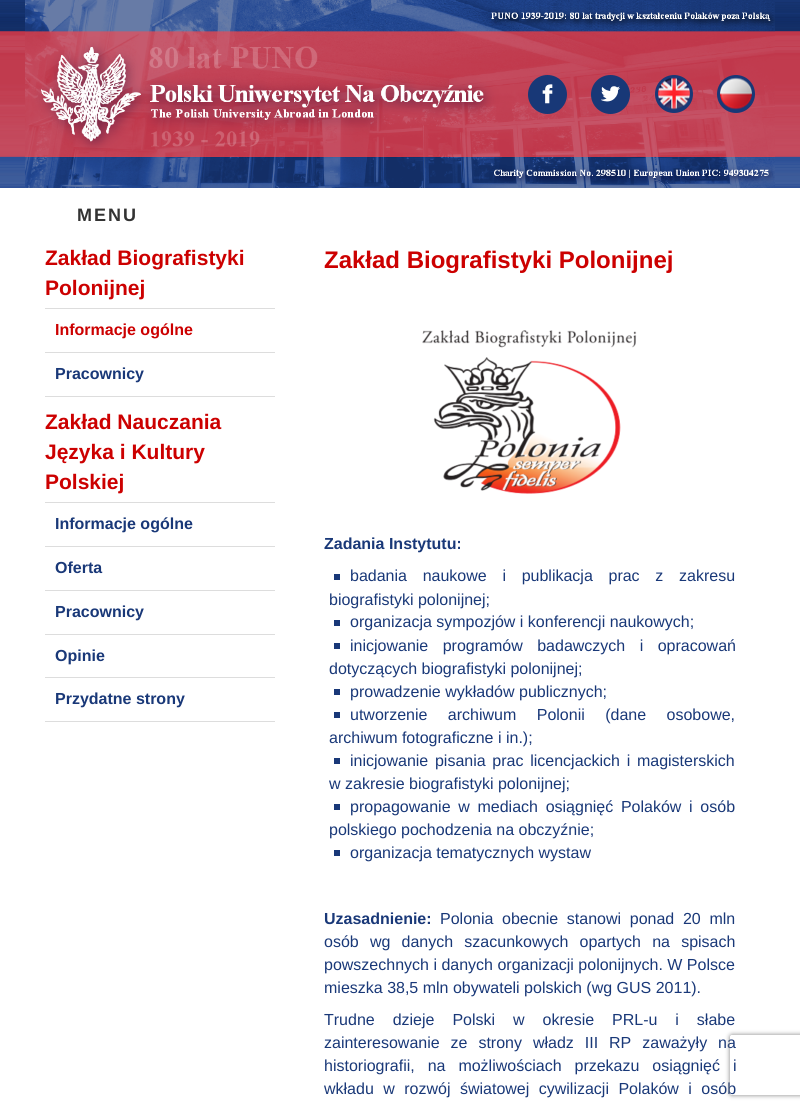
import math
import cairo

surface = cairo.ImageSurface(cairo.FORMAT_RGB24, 800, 1109)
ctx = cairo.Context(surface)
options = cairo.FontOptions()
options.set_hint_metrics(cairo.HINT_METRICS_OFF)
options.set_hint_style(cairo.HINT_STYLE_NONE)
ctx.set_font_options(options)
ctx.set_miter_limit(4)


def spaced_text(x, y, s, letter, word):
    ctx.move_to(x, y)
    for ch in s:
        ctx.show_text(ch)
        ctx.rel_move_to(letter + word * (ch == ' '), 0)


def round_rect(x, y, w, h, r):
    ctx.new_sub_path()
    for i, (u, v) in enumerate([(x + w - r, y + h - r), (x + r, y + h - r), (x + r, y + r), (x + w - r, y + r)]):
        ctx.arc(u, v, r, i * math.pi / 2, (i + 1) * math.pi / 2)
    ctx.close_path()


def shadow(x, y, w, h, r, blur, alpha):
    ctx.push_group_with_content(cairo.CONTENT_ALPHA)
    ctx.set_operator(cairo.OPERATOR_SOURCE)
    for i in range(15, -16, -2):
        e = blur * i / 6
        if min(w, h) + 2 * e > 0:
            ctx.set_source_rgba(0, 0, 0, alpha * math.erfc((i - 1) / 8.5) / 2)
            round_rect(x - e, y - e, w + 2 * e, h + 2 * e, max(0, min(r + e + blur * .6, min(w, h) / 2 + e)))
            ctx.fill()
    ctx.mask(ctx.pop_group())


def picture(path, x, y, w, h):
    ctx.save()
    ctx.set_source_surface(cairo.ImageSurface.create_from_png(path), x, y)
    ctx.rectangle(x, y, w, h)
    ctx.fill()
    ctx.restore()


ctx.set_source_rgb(1, 1, 1)
ctx.paint()
picture("img1.png", 0, 0, 800, 188)
picture("img2.png", 25, 0, 750, 188)
ctx.set_source_rgb(0.094, 0.22, 0.467)
ctx.arc(547.5, 94.5, 19.5, 0, 2 * math.pi)
ctx.fill()
picture("img3.png", 542, 84, 11, 20)
ctx.arc(610.5, 94.5, 19.5, 0, 2 * math.pi)
ctx.fill()
picture("img4.png", 601, 86, 19, 16)
ctx.arc(674, 94, 19, 0, 2 * math.pi)
ctx.fill()
picture("img5.png", 658, 77, 32, 33)
ctx.arc(736, 94, 19, 0, 2 * math.pi)
ctx.fill()
picture("img6.png", 720, 77, 32, 33)
ctx.select_font_face("Liberation Sans", cairo.FONT_SLANT_NORMAL, cairo.FONT_WEIGHT_BOLD)
ctx.set_font_size(18)
ctx.set_source_rgb(0.2, 0.2, 0.2)
spaced_text(77, 221, "MENU", 2, 0)
ctx.set_source_rgb(0.867, 0.867, 0.867)
ctx.rectangle(45, 308, 230, 1)
ctx.fill()
ctx.set_font_size(21)
ctx.set_source_rgb(0.8, 0, 0)
ctx.move_to(45, 265)
ctx.show_text("Zakład Biografistyki")
ctx.move_to(45, 295)
ctx.show_text("Polonijnej")
ctx.set_source_rgb(0.867, 0.867, 0.867)
ctx.rectangle(45, 352, 230, 1)
ctx.fill()
ctx.set_font_size(16)
ctx.set_source_rgb(0.8, 0, 0)
ctx.move_to(55, 335)
ctx.show_text("Informacje ogólne")
ctx.set_source_rgb(0.867, 0.867, 0.867)
ctx.rectangle(45, 396, 230, 1)
ctx.fill()
ctx.set_source_rgb(0.098, 0.22, 0.471)
ctx.move_to(55, 379)
ctx.show_text("Pracownicy")
ctx.set_source_rgb(0.867, 0.867, 0.867)
ctx.rectangle(45, 502, 230, 1)
ctx.fill()
ctx.set_font_size(21)
ctx.set_source_rgb(0.8, 0, 0)
ctx.move_to(45, 429)
ctx.show_text("Zakład Nauczania")
ctx.move_to(45, 459)
ctx.show_text("Języka i Kultury")
ctx.move_to(45, 489)
ctx.show_text("Polskiej")
ctx.set_source_rgb(0.867, 0.867, 0.867)
ctx.rectangle(45, 546, 230, 1)
ctx.fill()
ctx.set_font_size(16)
ctx.set_source_rgb(0.098, 0.22, 0.471)
ctx.move_to(55, 529)
ctx.show_text("Informacje ogólne")
ctx.set_source_rgb(0.867, 0.867, 0.867)
ctx.rectangle(45, 590, 230, 1)
ctx.fill()
ctx.set_source_rgb(0.098, 0.22, 0.471)
ctx.move_to(55, 573)
ctx.show_text("Oferta")
ctx.set_source_rgb(0.867, 0.867, 0.867)
ctx.rectangle(45, 634, 230, 1)
ctx.fill()
ctx.set_source_rgb(0.098, 0.22, 0.471)
ctx.move_to(55, 617)
ctx.show_text("Pracownicy")
ctx.set_source_rgb(0.867, 0.867, 0.867)
ctx.rectangle(45, 677, 230, 1)
ctx.fill()
ctx.set_source_rgb(0.098, 0.22, 0.471)
ctx.move_to(55, 661)
ctx.show_text("Opinie")
ctx.set_source_rgb(0.867, 0.867, 0.867)
ctx.rectangle(45, 721, 230, 1)
ctx.fill()
ctx.set_source_rgb(0.098, 0.22, 0.471)
ctx.move_to(55, 704)
ctx.show_text("Przydatne strony")
ctx.set_font_size(24)
ctx.set_source_rgb(0.8, 0, 0)
ctx.move_to(324, 268)
ctx.show_text("Zakład Biografistyki Polonijnej")
picture("img7.png", 422, 330, 215, 164)
ctx.set_font_size(16)
ctx.set_source_rgb(0.098, 0.22, 0.471)
ctx.move_to(324, 549)
ctx.show_text("Zadania Instytutu:")
ctx.rectangle(334, 574, 6, 6)
ctx.fill()
ctx.select_font_face("Liberation Sans")
spaced_text(350, 581, "badania naukowe i publikacja prac z zakresu", 0, 11.25)
ctx.move_to(329, 605)
ctx.show_text("biografistyki polonijnej;")
ctx.rectangle(334, 620, 6, 6)
ctx.fill()
ctx.move_to(350, 627)
ctx.show_text("organizacja sympozjów i konferencji naukowych;")
ctx.rectangle(334, 643, 6, 6)
ctx.fill()
spaced_text(350, 651, "inicjowanie programów badawczych i opracowań", 0, 10)
ctx.move_to(329, 674)
ctx.show_text("dotyczących biografistyki polonijnej;")
ctx.rectangle(334, 689, 6, 6)
ctx.fill()
ctx.move_to(350, 697)
ctx.show_text("prowadzenie wykładów publicznych;")
ctx.rectangle(334, 712, 6, 6)
ctx.fill()
spaced_text(350, 720, "utworzenie archiwum Polonii (dane osobowe,", 0, 16)
ctx.move_to(329, 743)
ctx.show_text("archiwum fotograficzne i in.);")
ctx.rectangle(334, 758, 6, 6)
ctx.fill()
spaced_text(350, 766, "inicjowanie pisania prac licencjackich i magisterskich", 0, 2.25)
ctx.move_to(329, 789)
ctx.show_text("w zakresie biografistyki polonijnej;")
ctx.rectangle(334, 804, 6, 6)
ctx.fill()
spaced_text(350, 812, "propagowanie w mediach osiągnięć Polaków i osób", 0, 3.25)
ctx.move_to(329, 835)
ctx.show_text("polskiego pochodzenia na obczyźnie;")
ctx.rectangle(334, 850, 6, 6)
ctx.fill()
ctx.move_to(350, 858)
ctx.show_text("organizacja tematycznych wystaw")
ctx.select_font_face("Liberation Sans", cairo.FONT_SLANT_NORMAL, cairo.FONT_WEIGHT_BOLD)
ctx.move_to(324, 924)
ctx.show_text("Uzasadnienie:")
ctx.select_font_face("Liberation Sans")
spaced_text(440, 924, "Polonia obecnie stanowi ponad 20 mln", 0, 4.25)
spaced_text(324, 947, "osób wg danych szacunkowych opartych na spisach", 0, 6.75)
ctx.move_to(324, 970)
ctx.show_text("powszechnych i danych organizacji polonijnych. W Polsce")
ctx.move_to(324, 993)
ctx.show_text("mieszka 38,5 mln obywateli polskich (wg GUS 2011).")
spaced_text(324, 1025, "Trudne dzieje Polski w okresie PRL-u i słabe", 0, 13.5)
spaced_text(324, 1048, "zainteresowanie ze strony władz III RP zaważyły na", 0, 6.5)
spaced_text(324, 1071, "historiografii, na możliwościach przekazu osiągnięć i", 0, 8.5)
spaced_text(324, 1094, "wkładu w rozwój światowej cywilizacji Polaków i osób", 0, 5)
ctx.save()
ctx.set_fill_rule(cairo.FILL_RULE_EVEN_ODD)
ctx.new_path()
ctx.move_to(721, 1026)
ctx.line_to(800, 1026)
ctx.line_to(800, 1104)
ctx.line_to(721, 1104)
ctx.close_path()
ctx.move_to(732, 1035)
ctx.line_to(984, 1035)
ctx.curve_to(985, 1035, 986, 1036, 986, 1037)
ctx.line_to(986, 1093)
ctx.curve_to(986, 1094, 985, 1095, 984, 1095)
ctx.line_to(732, 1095)
ctx.curve_to(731, 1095, 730, 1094, 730, 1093)
ctx.line_to(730, 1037)
ctx.curve_to(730, 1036, 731, 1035, 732, 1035)
ctx.close_path()
ctx.clip()
ctx.set_source_rgb(0.502, 0.502, 0.502)
shadow(730, 1035, 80, 60, 2, 2.5, 1)
ctx.restore()
surface.write_to_png("page.png")
